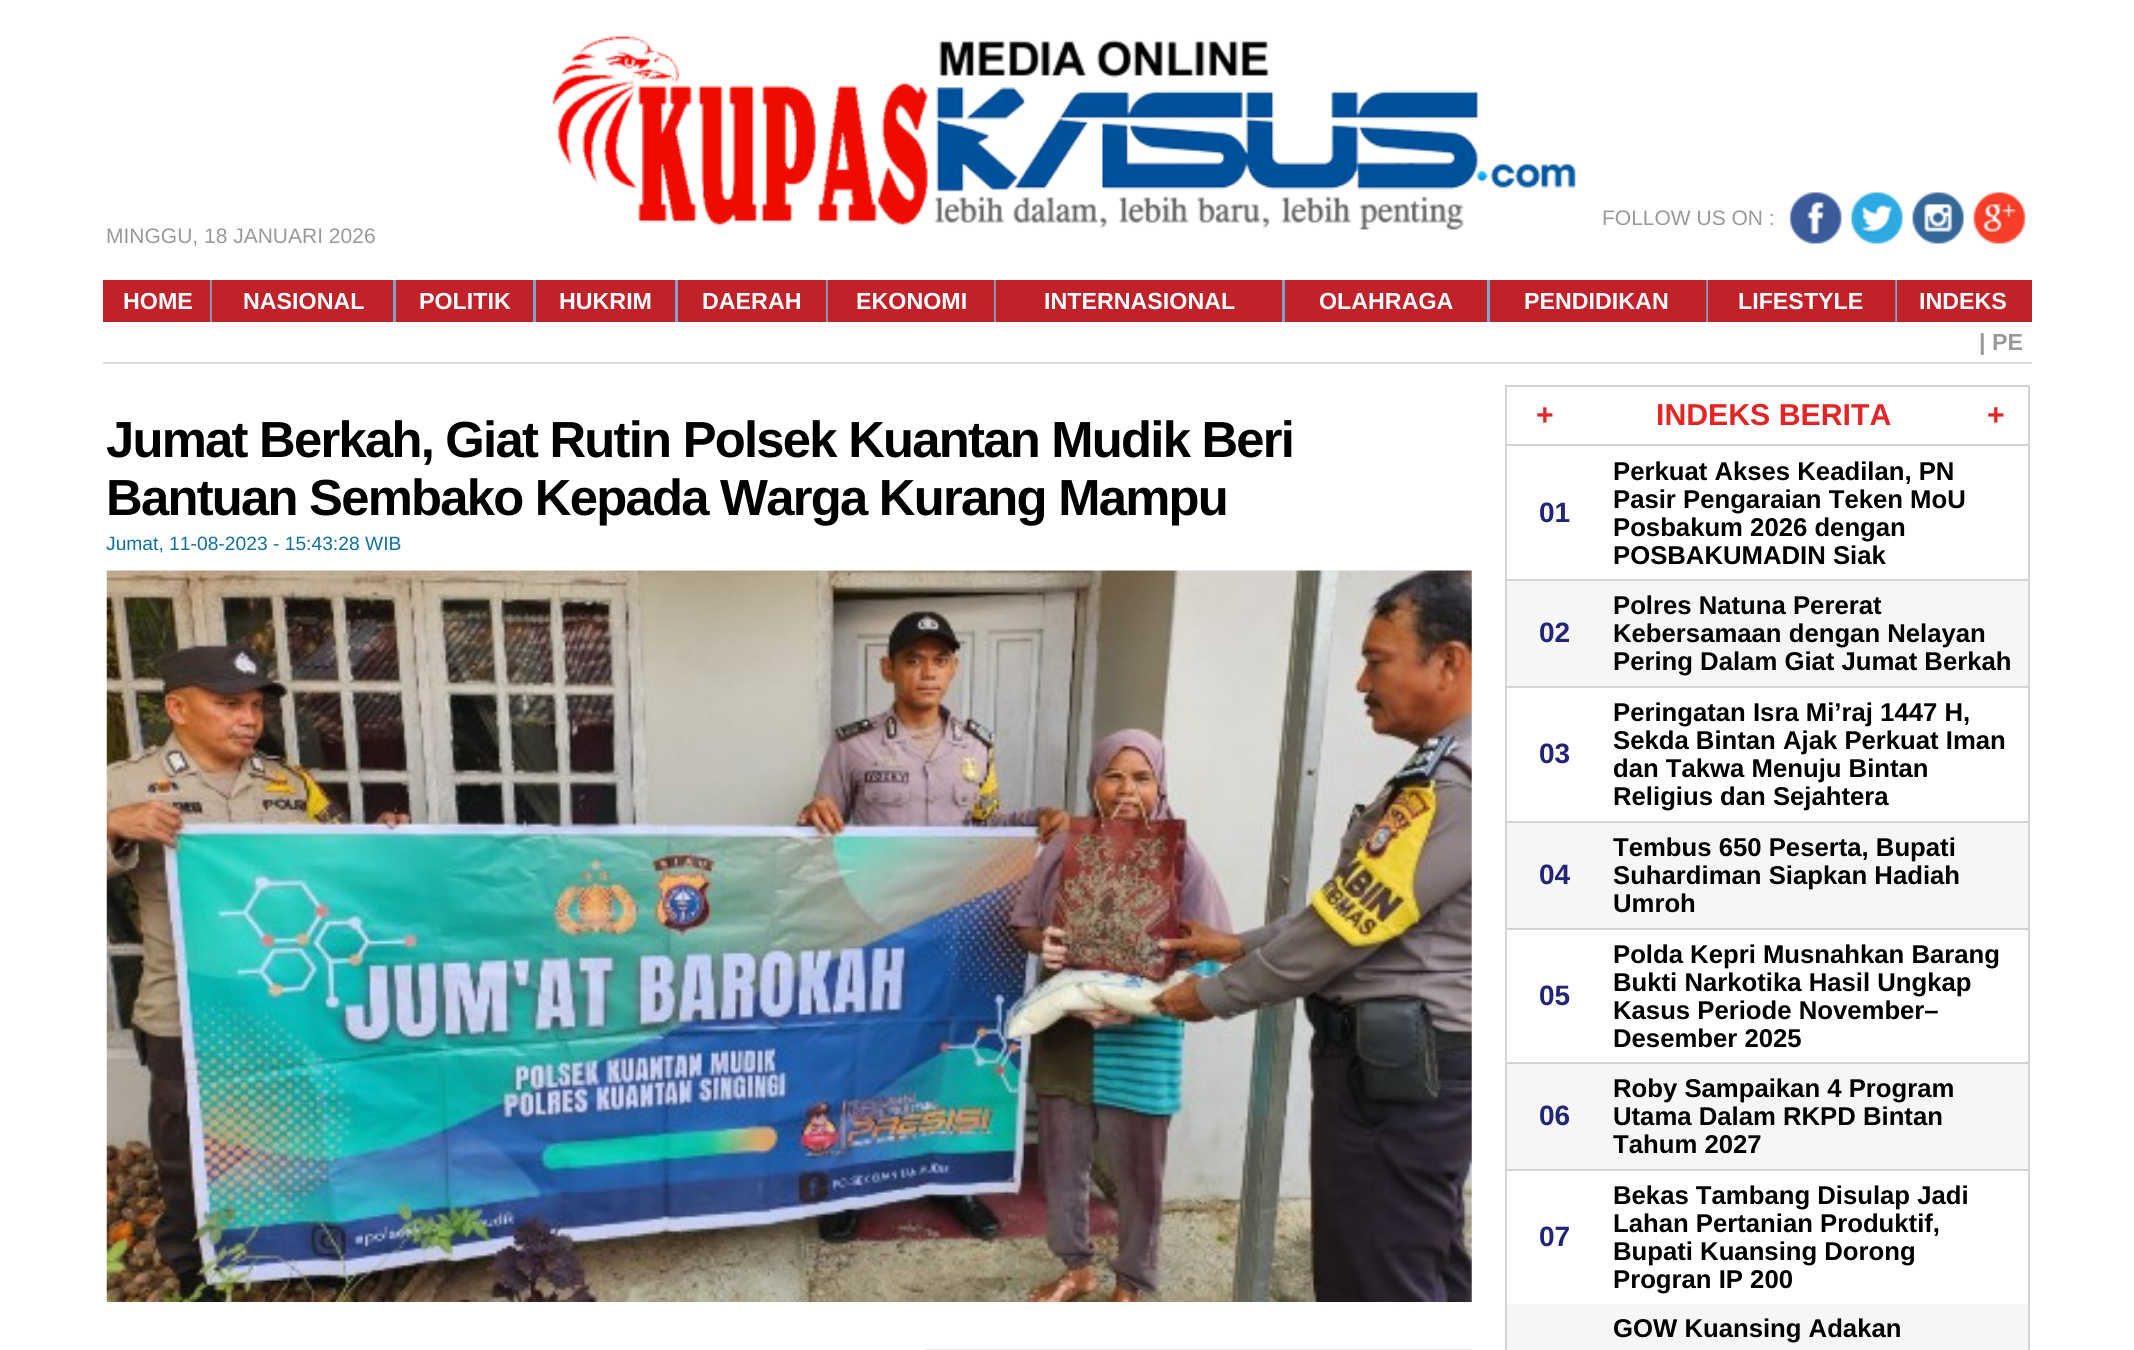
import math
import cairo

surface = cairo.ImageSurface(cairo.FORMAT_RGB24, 2134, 1350)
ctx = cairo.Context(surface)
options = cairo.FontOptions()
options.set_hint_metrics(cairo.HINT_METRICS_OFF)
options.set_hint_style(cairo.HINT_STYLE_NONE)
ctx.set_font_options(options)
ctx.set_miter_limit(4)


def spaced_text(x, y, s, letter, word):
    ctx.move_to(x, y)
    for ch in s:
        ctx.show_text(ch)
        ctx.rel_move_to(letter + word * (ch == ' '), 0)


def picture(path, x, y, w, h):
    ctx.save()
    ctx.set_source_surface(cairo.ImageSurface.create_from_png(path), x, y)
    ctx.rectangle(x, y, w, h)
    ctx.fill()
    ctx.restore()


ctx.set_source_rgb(1, 1, 1)
ctx.paint()
picture("img1.png", 552, 36, 1024, 194)
ctx.select_font_face("Liberation Sans")
ctx.set_font_size(21)
ctx.set_source_rgb(0.6, 0.6, 0.6)
ctx.move_to(1602, 225)
ctx.show_text("FOLLOW US ON :")
picture("img2.png", 1789, 192, 53, 52)
picture("img3.png", 1851, 192, 52, 52)
picture("img4.png", 1912, 192, 52, 52)
picture("img5.png", 1973, 192, 53, 52)
ctx.move_to(106, 243)
ctx.show_text("MINGGU, 18 JANUARI 2026")
ctx.set_source_rgb(0.757, 0.133, 0.161)
ctx.rectangle(103, 280, 1929, 42)
ctx.fill()
ctx.select_font_face("Liberation Sans", cairo.FONT_SLANT_NORMAL, cairo.FONT_WEIGHT_BOLD)
ctx.set_font_size(23.25)
ctx.set_source_rgb(1, 1, 1)
ctx.move_to(123, 309)
ctx.show_text("HOME")
picture("img6.png", 210, 280, 2, 42)
ctx.move_to(243, 309)
ctx.show_text("NASIONAL")
ctx.set_source_rgb(0.49, 0.635, 0.796)
ctx.rectangle(393, 280, 3, 42)
ctx.fill()
ctx.set_source_rgb(1, 1, 1)
ctx.move_to(419, 309)
ctx.show_text("POLITIK")
ctx.set_source_rgb(0.49, 0.635, 0.796)
ctx.rectangle(533, 280, 3, 42)
ctx.fill()
ctx.set_source_rgb(1, 1, 1)
ctx.move_to(559, 309)
ctx.show_text("HUKRIM")
ctx.set_source_rgb(0.502, 0.643, 0.808)
ctx.rectangle(675, 280, 3, 42)
ctx.fill()
ctx.set_source_rgb(1, 1, 1)
ctx.move_to(702, 309)
ctx.show_text("DAERAH")
picture("img6.png", 826, 280, 2, 42)
ctx.move_to(856, 309)
ctx.show_text("EKONOMI")
picture("img6.png", 994, 280, 2, 42)
ctx.move_to(1044, 309)
ctx.show_text("INTERNASIONAL")
ctx.set_source_rgb(0.49, 0.635, 0.796)
ctx.rectangle(1282, 280, 3, 42)
ctx.fill()
ctx.set_source_rgb(1, 1, 1)
ctx.move_to(1319, 309)
ctx.show_text("OLAHRAGA")
ctx.set_source_rgb(0.502, 0.643, 0.808)
ctx.rectangle(1487, 280, 3, 42)
ctx.fill()
ctx.set_source_rgb(1, 1, 1)
ctx.move_to(1524, 309)
ctx.show_text("PENDIDIKAN")
picture("img7.png", 1706, 280, 2, 42)
ctx.move_to(1738, 309)
ctx.show_text("LIFESTYLE")
picture("img7.png", 1895, 280, 2, 42)
ctx.move_to(1919, 309)
ctx.show_text("INDEKS")
ctx.set_source_rgb(0.851, 0.851, 0.851)
ctx.rectangle(103, 362, 1929, 2)
ctx.fill()
ctx.save()
ctx.rectangle(110, 329, 1915, 26)
ctx.clip()
ctx.set_source_rgb(0.6, 0.6, 0.6)
ctx.move_to(1979, 350)
ctx.show_text("| PE")
ctx.restore()
ctx.set_font_size(50.75)
ctx.set_source_rgb(0, 0, 0)
spaced_text(106, 457, "Jumat Berkah, Giat Rutin Polsek Kuantan Mudik Beri", -1.75, 0)
spaced_text(106, 515, "Bantuan Sembako Kepada Warga Kurang Mampu", -1.75, 0)
ctx.select_font_face("Liberation Sans")
ctx.set_font_size(19.25)
ctx.set_source_rgb(0.067, 0.439, 0.627)
ctx.move_to(106, 550)
ctx.show_text("Jumat, 11-08-2023 - 15:43:28 WIB")
picture("img8.png", 106, 570, 1366, 732)
ctx.set_source_rgb(0.898, 0.898, 0.898)
ctx.rectangle(926, 1349, 546, 1)
ctx.fill()
ctx.rectangle(1506, 386, 523, 59)
ctx.set_source_rgb(0.827, 0.831, 0.835)
ctx.stroke()
ctx.select_font_face("Liberation Sans", cairo.FONT_SLANT_NORMAL, cairo.FONT_WEIGHT_BOLD)
ctx.set_font_size(30.25)
ctx.set_source_rgb(0.886, 0.145, 0.145)
ctx.move_to(1536, 425)
ctx.show_text("+")
ctx.move_to(1656, 425)
ctx.show_text("INDEKS BERITA")
ctx.move_to(1987, 425)
ctx.show_text("+")
ctx.set_source_rgb(0.827, 0.831, 0.835)
ctx.rectangle(2028, 446, 2, 904)
ctx.fill()
ctx.rectangle(1505, 446, 2, 904)
ctx.fill()
ctx.rectangle(1507, 579, 521, 2)
ctx.fill()
ctx.set_font_size(28)
ctx.set_source_rgb(0.133, 0.141, 0.459)
ctx.move_to(1539, 522)
ctx.show_text("01")
ctx.set_font_size(25.7)
ctx.set_source_rgb(0, 0, 0)
ctx.move_to(1613, 480)
ctx.show_text("Perkuat Akses Keadilan, PN")
ctx.move_to(1613, 508)
ctx.show_text("Pasir Pengaraian Teken MoU")
ctx.move_to(1613, 536)
ctx.show_text("Posbakum 2026 dengan")
ctx.move_to(1613, 564)
ctx.show_text("POSBAKUMADIN Siak")
ctx.set_source_rgb(0.961, 0.961, 0.961)
ctx.rectangle(1507, 581, 521, 105)
ctx.fill()
ctx.set_source_rgb(0.827, 0.831, 0.835)
ctx.rectangle(1507, 686, 521, 2)
ctx.fill()
ctx.set_font_size(28)
ctx.set_source_rgb(0.133, 0.141, 0.459)
ctx.move_to(1539, 642)
ctx.show_text("02")
ctx.set_font_size(25.7)
ctx.set_source_rgb(0, 0, 0)
ctx.move_to(1613, 614)
ctx.show_text("Polres Natuna Pererat")
ctx.move_to(1613, 642)
ctx.show_text("Kebersamaan dengan Nelayan")
ctx.move_to(1613, 670)
ctx.show_text("Pering Dalam Giat Jumat Berkah")
ctx.set_source_rgb(0.827, 0.831, 0.835)
ctx.rectangle(1507, 821, 521, 2)
ctx.fill()
ctx.set_font_size(28)
ctx.set_source_rgb(0.133, 0.141, 0.459)
ctx.move_to(1539, 763)
ctx.show_text("03")
ctx.set_font_size(25.7)
ctx.set_source_rgb(0, 0, 0)
ctx.move_to(1613, 721)
ctx.show_text("Peringatan Isra Mi’raj 1447 H,")
ctx.move_to(1613, 749)
ctx.show_text("Sekda Bintan Ajak Perkuat Iman")
ctx.move_to(1613, 777)
ctx.show_text("dan Takwa Menuju Bintan")
ctx.move_to(1613, 805)
ctx.show_text("Religius dan Sejahtera")
ctx.set_source_rgb(0.961, 0.961, 0.961)
ctx.rectangle(1507, 823, 521, 105)
ctx.fill()
ctx.set_source_rgb(0.827, 0.831, 0.835)
ctx.rectangle(1507, 928, 521, 2)
ctx.fill()
ctx.set_font_size(28)
ctx.set_source_rgb(0.133, 0.141, 0.459)
ctx.move_to(1539, 884)
ctx.show_text("04")
ctx.set_font_size(25.7)
ctx.set_source_rgb(0, 0, 0)
ctx.move_to(1613, 856)
ctx.show_text("Tembus 650 Peserta, Bupati")
ctx.move_to(1613, 884)
ctx.show_text("Suhardiman Siapkan Hadiah")
ctx.move_to(1613, 912)
ctx.show_text("Umroh")
ctx.set_source_rgb(0.827, 0.831, 0.835)
ctx.rectangle(1507, 1062, 521, 2)
ctx.fill()
ctx.set_font_size(28)
ctx.set_source_rgb(0.133, 0.141, 0.459)
ctx.move_to(1539, 1005)
ctx.show_text("05")
ctx.set_font_size(25.7)
ctx.set_source_rgb(0, 0, 0)
ctx.move_to(1613, 963)
ctx.show_text("Polda Kepri Musnahkan Barang")
ctx.move_to(1613, 991)
ctx.show_text("Bukti Narkotika Hasil Ungkap")
ctx.move_to(1613, 1019)
ctx.show_text("Kasus Periode November–")
ctx.move_to(1613, 1047)
ctx.show_text("Desember 2025")
ctx.set_source_rgb(0.961, 0.961, 0.961)
ctx.rectangle(1507, 1064, 521, 105)
ctx.fill()
ctx.set_source_rgb(0.827, 0.831, 0.835)
ctx.rectangle(1507, 1169, 521, 2)
ctx.fill()
ctx.set_font_size(28)
ctx.set_source_rgb(0.133, 0.141, 0.459)
ctx.move_to(1539, 1125)
ctx.show_text("06")
ctx.set_font_size(25.7)
ctx.set_source_rgb(0, 0, 0)
ctx.move_to(1613, 1097)
ctx.show_text("Roby Sampaikan 4 Program")
ctx.move_to(1613, 1125)
ctx.show_text("Utama Dalam RKPD Bintan")
ctx.move_to(1613, 1153)
ctx.show_text("Tahum 2027")
ctx.set_font_size(28)
ctx.set_source_rgb(0.133, 0.141, 0.459)
ctx.move_to(1539, 1246)
ctx.show_text("07")
ctx.set_font_size(25.7)
ctx.set_source_rgb(0, 0, 0)
ctx.move_to(1613, 1204)
ctx.show_text("Bekas Tambang Disulap Jadi")
ctx.move_to(1613, 1232)
ctx.show_text("Lahan Pertanian Produktif,")
ctx.move_to(1613, 1260)
ctx.show_text("Bupati Kuansing Dorong")
ctx.move_to(1613, 1288)
ctx.show_text("Progran IP 200")
ctx.set_source_rgb(0.961, 0.961, 0.961)
ctx.rectangle(1507, 1304, 521, 46)
ctx.fill()
ctx.set_source_rgb(0, 0, 0)
ctx.move_to(1613, 1337)
ctx.show_text("GOW Kuansing Adakan")
surface.write_to_png("page.png")
